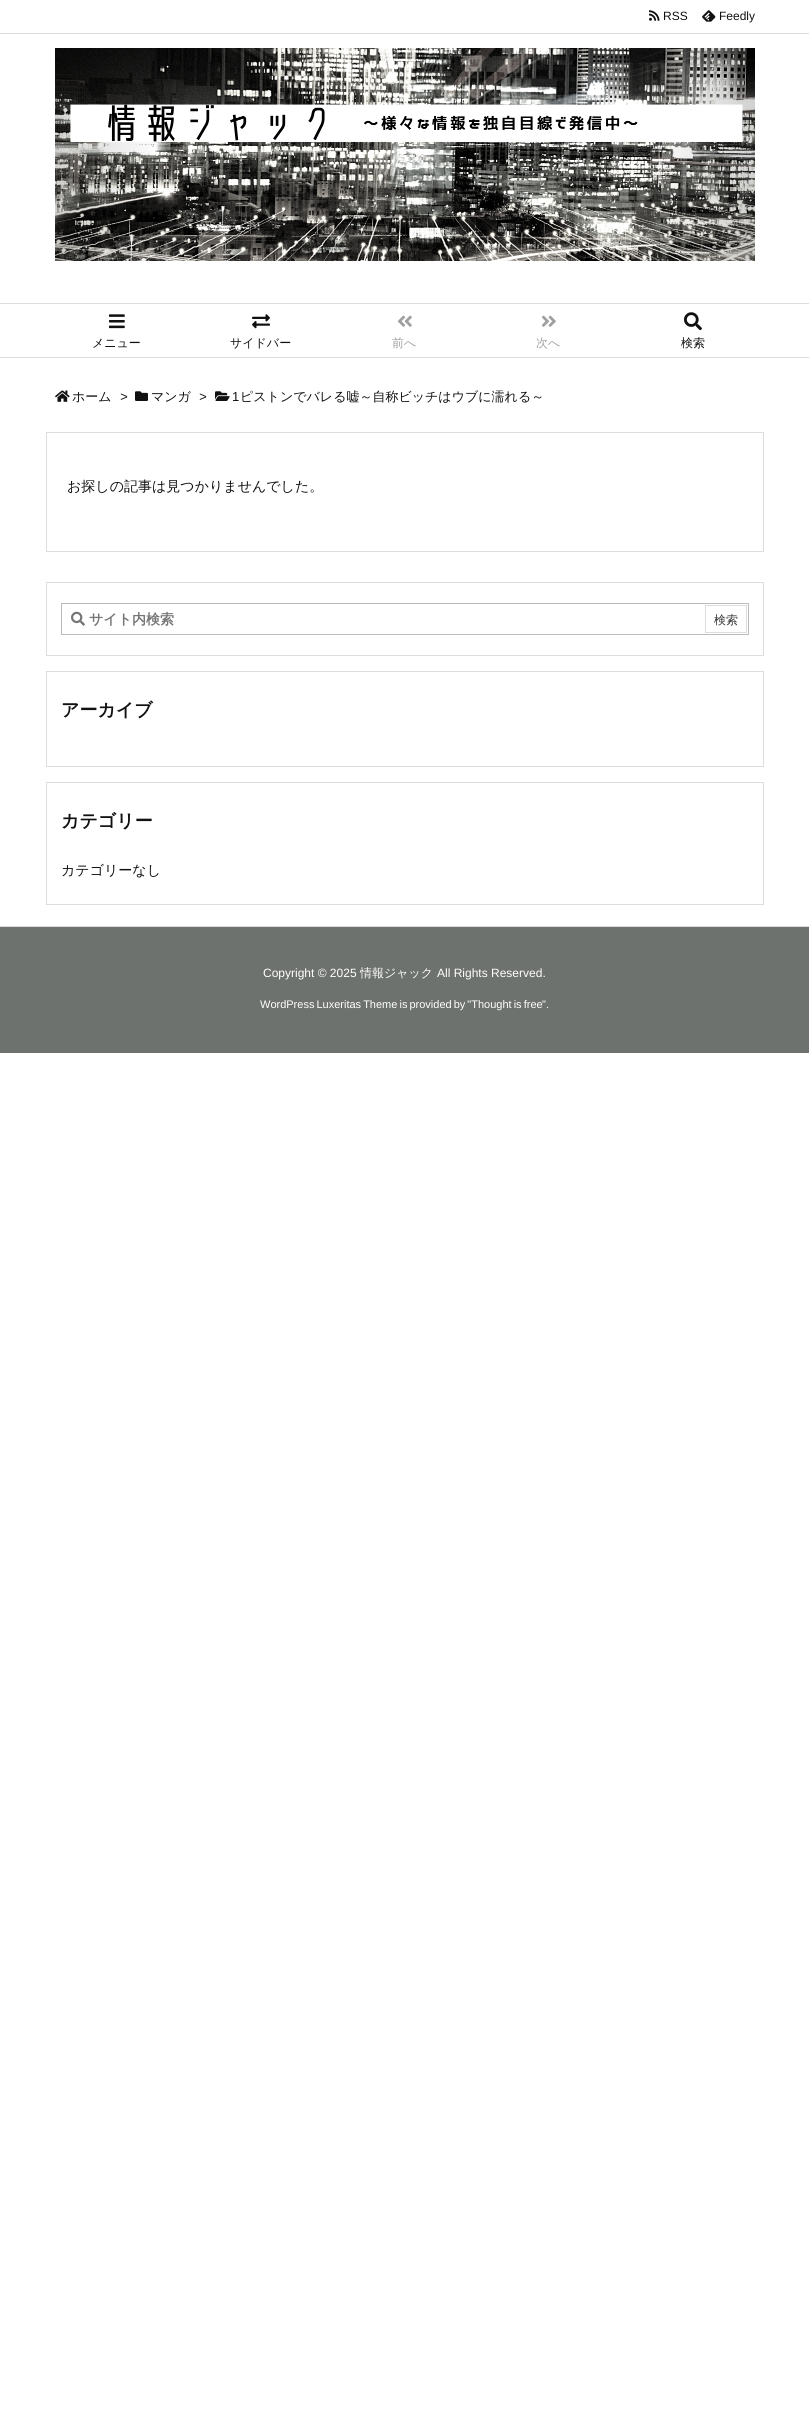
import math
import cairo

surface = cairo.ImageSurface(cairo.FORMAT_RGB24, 809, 2415)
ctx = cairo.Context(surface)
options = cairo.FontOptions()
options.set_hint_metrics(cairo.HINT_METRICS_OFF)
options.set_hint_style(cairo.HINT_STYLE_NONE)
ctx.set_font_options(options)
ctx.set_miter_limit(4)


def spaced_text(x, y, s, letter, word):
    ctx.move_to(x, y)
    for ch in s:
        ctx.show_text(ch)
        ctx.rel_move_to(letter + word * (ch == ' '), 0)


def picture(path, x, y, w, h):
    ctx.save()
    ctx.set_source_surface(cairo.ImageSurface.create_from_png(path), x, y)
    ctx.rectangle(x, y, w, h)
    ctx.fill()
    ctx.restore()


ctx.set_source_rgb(1, 1, 1)
ctx.paint()
ctx.set_source_rgb(0.867, 0.867, 0.867)
ctx.rectangle(0, 33, 809, 1)
ctx.fill()
picture("img1.png", 649, 10, 11, 11)
ctx.select_font_face("Liberation Sans")
ctx.set_font_size(12)
ctx.set_source_rgb(0.067, 0.067, 0.067)
ctx.move_to(663, 20)
ctx.show_text("RSS")
picture("img2.png", 702, 10, 14, 12)
ctx.move_to(719, 20)
ctx.show_text("Feedly")
ctx.set_source_rgb(0.867, 0.867, 0.867)
ctx.rectangle(0, 303, 809, 1)
ctx.fill()
ctx.rectangle(0, 357, 809, 1)
ctx.fill()
picture("img3.png", 109, 314, 16, 15)
ctx.select_font_face("WenQuanYi Zen Hei Medium")
ctx.set_source_rgb(0.067, 0.067, 0.067)
ctx.move_to(92, 347)
ctx.show_text("メニュー")
picture("img4.png", 252, 314, 18, 15)
ctx.move_to(230, 347)
ctx.show_text("サイドバー")
picture("img5.png", 398, 315, 14, 12)
ctx.set_source_rgb(0.627, 0.627, 0.627)
ctx.move_to(392, 347)
ctx.show_text("前へ")
picture("img6.png", 542, 315, 14, 12)
ctx.move_to(536, 347)
ctx.show_text("次へ")
picture("img7.png", 684, 312, 18, 19)
ctx.set_source_rgb(0.067, 0.067, 0.067)
ctx.move_to(681, 347)
ctx.show_text("検索")
picture("img8.png", 55, 48, 700, 213)
picture("img9.png", 55, 390, 15, 12)
ctx.set_font_size(13)
ctx.move_to(72, 401)
ctx.show_text("ホーム")
ctx.select_font_face("Liberation Sans", cairo.FONT_SLANT_ITALIC)
ctx.move_to(120, 401)
ctx.show_text(">")
picture("img10.png", 135, 391, 13, 10)
ctx.select_font_face("WenQuanYi Zen Hei Medium")
ctx.move_to(151, 401)
ctx.show_text("マンガ")
ctx.select_font_face("Liberation Sans", cairo.FONT_SLANT_ITALIC)
ctx.move_to(199, 401)
ctx.show_text(">")
picture("img11.png", 215, 391, 15, 10)
ctx.select_font_face("Liberation Sans")
ctx.move_to(232, 401)
ctx.show_text("1")
ctx.select_font_face("WenQuanYi Zen Hei Medium")
ctx.move_to(240, 401)
ctx.show_text("ピストンでバレる嘘～自称ビッチはウブに濡れる～")
ctx.rectangle(46.5, 432.5, 717, 119)
ctx.set_source_rgb(0.867, 0.867, 0.867)
ctx.set_line_width(1)
ctx.stroke()
ctx.set_font_size(14)
ctx.set_source_rgb(0.067, 0.067, 0.067)
ctx.move_to(67, 491)
ctx.show_text("お探しの記事は見つかりませんでした。")
ctx.rectangle(46.5, 582.5, 717, 73)
ctx.set_source_rgb(0.867, 0.867, 0.867)
ctx.stroke()
ctx.rectangle(61.5, 603.5, 687, 31)
ctx.set_source_rgb(0.733, 0.733, 0.733)
ctx.stroke()
picture("img12.png", 71, 611, 14, 15)
ctx.select_font_face("WenQuanYi Zen Hei", cairo.FONT_SLANT_NORMAL, cairo.FONT_WEIGHT_BOLD)
ctx.set_source_rgb(0.463, 0.463, 0.463)
ctx.move_to(89, 624)
ctx.show_text("サイト内検索")
ctx.rectangle(705.5, 605.5, 41, 27)
ctx.set_source_rgb(0.867, 0.867, 0.867)
ctx.stroke()
ctx.select_font_face("WenQuanYi Zen Hei Medium")
ctx.set_font_size(12)
ctx.set_source_rgb(0.2, 0.2, 0.2)
ctx.move_to(714, 624)
ctx.show_text("検索")
ctx.rectangle(46.5, 671.5, 717, 95)
ctx.set_source_rgb(0.867, 0.867, 0.867)
ctx.stroke()
ctx.select_font_face("WenQuanYi Zen Hei", cairo.FONT_SLANT_NORMAL, cairo.FONT_WEIGHT_BOLD)
ctx.set_font_size(18)
ctx.set_source_rgb(0.067, 0.067, 0.067)
ctx.move_to(61, 716)
ctx.show_text("アーカイブ")
ctx.rectangle(46.5, 782.5, 717, 122)
ctx.set_source_rgb(0.867, 0.867, 0.867)
ctx.stroke()
ctx.set_source_rgb(0.067, 0.067, 0.067)
ctx.move_to(61, 827)
ctx.show_text("カテゴリー")
ctx.select_font_face("WenQuanYi Zen Hei Medium")
ctx.set_font_size(14)
ctx.move_to(61, 875)
ctx.show_text("カテゴリーなし")
ctx.set_source_rgb(0.867, 0.867, 0.867)
ctx.rectangle(0, 926, 809, 1)
ctx.fill()
ctx.set_source_rgb(0.431, 0.447, 0.431)
ctx.rectangle(0, 927, 809, 126)
ctx.fill()
ctx.select_font_face("Liberation Sans")
ctx.set_font_size(12)
ctx.set_source_rgb(1, 1, 1)
ctx.move_to(263, 977)
ctx.show_text("Copyright © 2025")
ctx.select_font_face("WenQuanYi Zen Hei Medium")
ctx.move_to(360, 977)
ctx.show_text("情報ジャック")
ctx.select_font_face("Liberation Sans")
ctx.move_to(437, 977)
ctx.show_text("All Rights Reserved.")
ctx.set_font_size(11)
spaced_text(260, 1008, "WordPress Luxeritas Theme is provided by \"Thought is free", 0, -1)
ctx.move_to(542, 1008)
ctx.show_text("\".")
surface.write_to_png("page.png")
